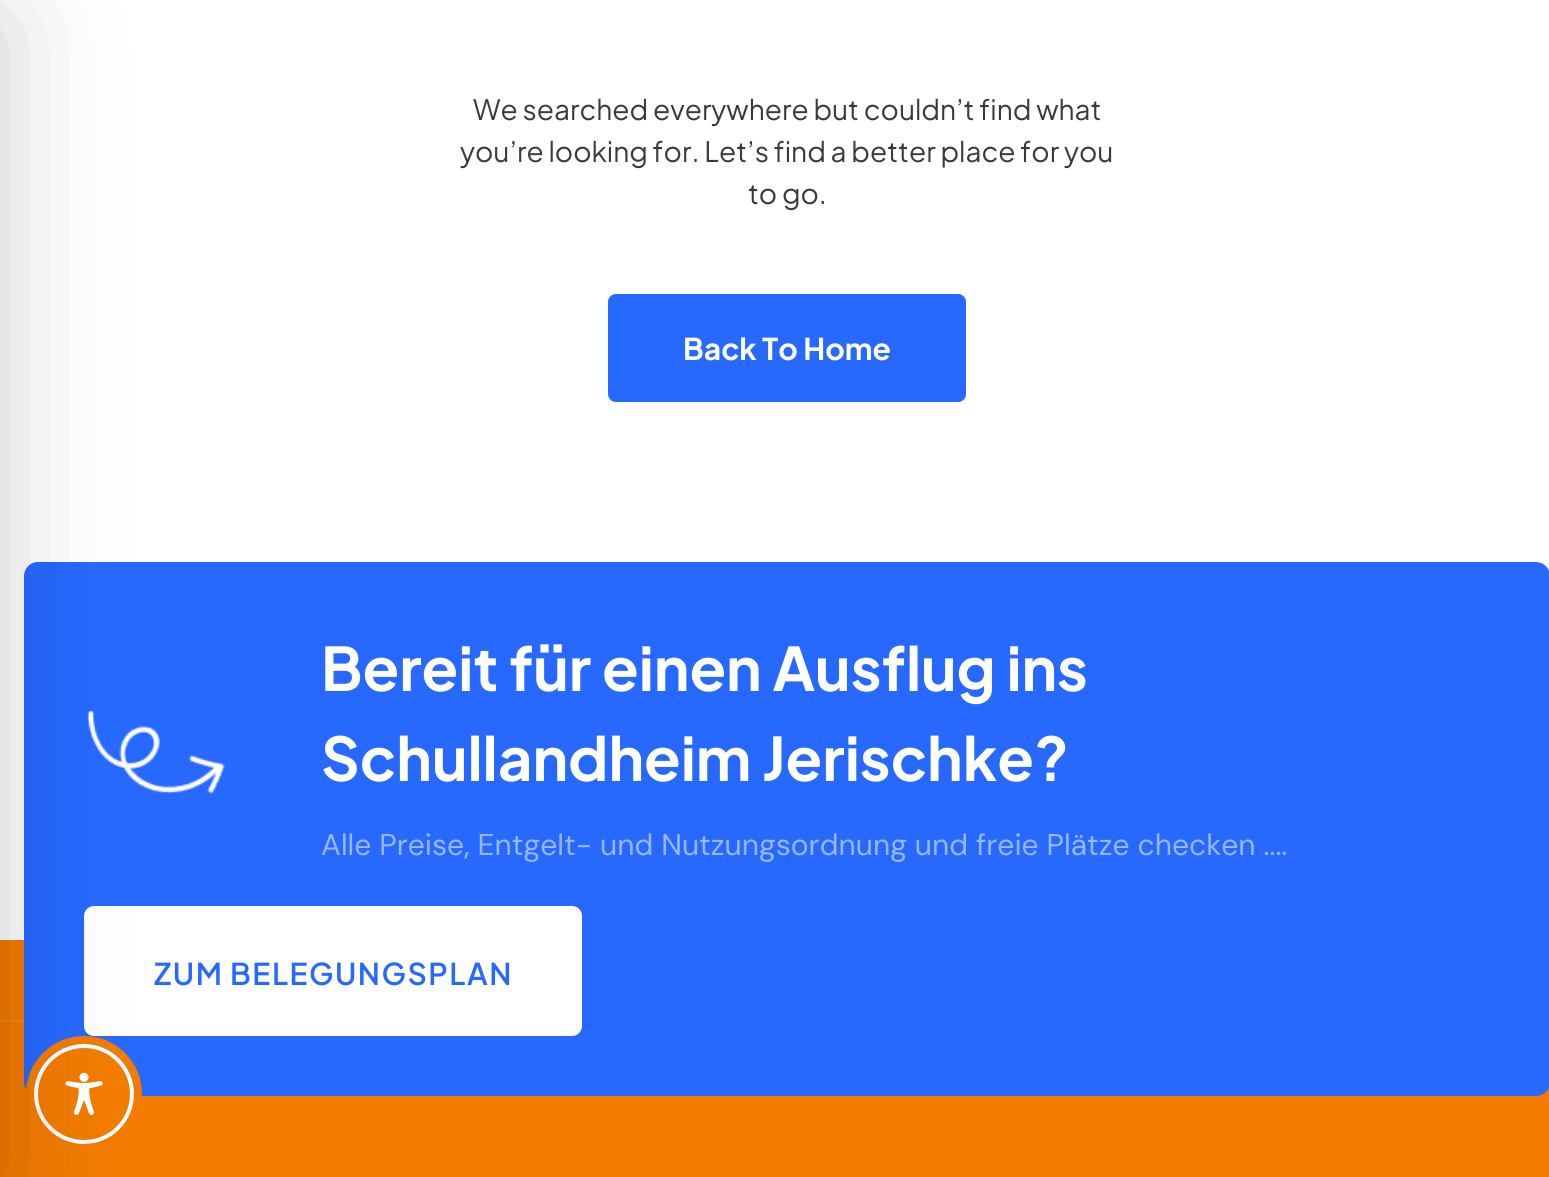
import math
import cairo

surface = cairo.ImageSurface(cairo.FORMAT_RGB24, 1549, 1177)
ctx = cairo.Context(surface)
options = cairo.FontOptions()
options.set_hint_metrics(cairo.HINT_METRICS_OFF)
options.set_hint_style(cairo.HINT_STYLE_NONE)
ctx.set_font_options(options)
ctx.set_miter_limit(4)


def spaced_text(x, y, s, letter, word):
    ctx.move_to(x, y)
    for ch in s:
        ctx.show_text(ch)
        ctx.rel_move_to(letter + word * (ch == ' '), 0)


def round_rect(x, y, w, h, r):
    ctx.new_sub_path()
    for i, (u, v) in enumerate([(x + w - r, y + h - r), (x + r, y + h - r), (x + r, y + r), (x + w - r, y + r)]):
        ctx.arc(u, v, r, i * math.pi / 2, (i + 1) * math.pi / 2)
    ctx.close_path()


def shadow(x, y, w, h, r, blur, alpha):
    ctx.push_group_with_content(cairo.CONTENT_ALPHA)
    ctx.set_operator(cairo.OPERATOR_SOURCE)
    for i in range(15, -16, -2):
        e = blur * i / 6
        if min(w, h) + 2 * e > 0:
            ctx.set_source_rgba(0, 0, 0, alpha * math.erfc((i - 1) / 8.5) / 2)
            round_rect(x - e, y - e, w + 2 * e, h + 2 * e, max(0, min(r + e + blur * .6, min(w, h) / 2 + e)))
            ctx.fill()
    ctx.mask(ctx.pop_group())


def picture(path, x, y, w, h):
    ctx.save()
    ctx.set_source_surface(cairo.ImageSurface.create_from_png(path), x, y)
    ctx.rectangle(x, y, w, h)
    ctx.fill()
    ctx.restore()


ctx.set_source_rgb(1, 1, 1)
ctx.paint()
ctx.set_source_rgb(0.953, 0.486, 0)
ctx.rectangle(0, 940, 1549, 237)
ctx.fill()
ctx.set_source_rgb(0.153, 0.412, 1)
round_rect(24, 562, 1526, 534, 14)
ctx.fill()
picture("img1.png", 87, 710, 138, 84)
ctx.set_source_rgb(1, 1, 1)
round_rect(84, 906, 498, 130, 10)
ctx.fill()
ctx.set_source_rgb(0.953, 0.518, 0.067)
ctx.rectangle(0, 1020, 24, 2)
ctx.fill()
ctx.arc(84, 1094, 54, 0, 2 * math.pi)
ctx.set_source_rgb(0.953, 0.486, 0)
ctx.set_line_width(8)
ctx.stroke()
ctx.arc(84, 1094, 48, 0, 2 * math.pi)
ctx.fill_preserve()
ctx.set_source_rgb(1, 1, 1)
ctx.set_line_width(4)
ctx.stroke()
picture("img2.png", 65, 1072, 38, 43)
ctx.set_source_rgb(0, 0, 0)
shadow(-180, 20, 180, 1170, 0, 60, 0.2)
ctx.select_font_face("Plus Jakarta Sans")
ctx.set_font_size(28)
ctx.set_source_rgb(0.227, 0.227, 0.235)
ctx.move_to(473, 120)
ctx.show_text("We searched everywhere but couldn’t find what")
ctx.move_to(460, 162)
ctx.show_text("you’re looking for. Let’s find a better place for you")
ctx.move_to(748, 204)
ctx.show_text("to go.")
ctx.set_source_rgb(0.153, 0.412, 1)
round_rect(608, 294, 358, 108, 8)
ctx.fill()
ctx.select_font_face("Plus Jakarta Sans", cairo.FONT_SLANT_NORMAL, cairo.FONT_WEIGHT_BOLD)
ctx.set_font_size(30)
ctx.set_source_rgb(1, 1, 1)
ctx.move_to(683, 360)
ctx.show_text("Back To Home")
ctx.set_font_size(60)
ctx.move_to(321, 691)
ctx.show_text("Bereit für einen Ausflug ins")
ctx.move_to(321, 781)
ctx.show_text("Schullandheim Jerischke?")
ctx.select_font_face("DM Sans")
ctx.set_font_size(30)
ctx.set_source_rgb(0.592, 0.718, 1)
ctx.move_to(321, 855)
ctx.show_text("Alle Preise, Entgelt- und Nutzungsordnung und freie Plätze checken ....")
ctx.select_font_face("Plus Jakarta Sans SemiBold")
ctx.set_source_rgb(0.153, 0.412, 1)
spaced_text(154, 985, "ZUM BELEGUNGSPLAN", 1.5, 0)
surface.write_to_png("page.png")
